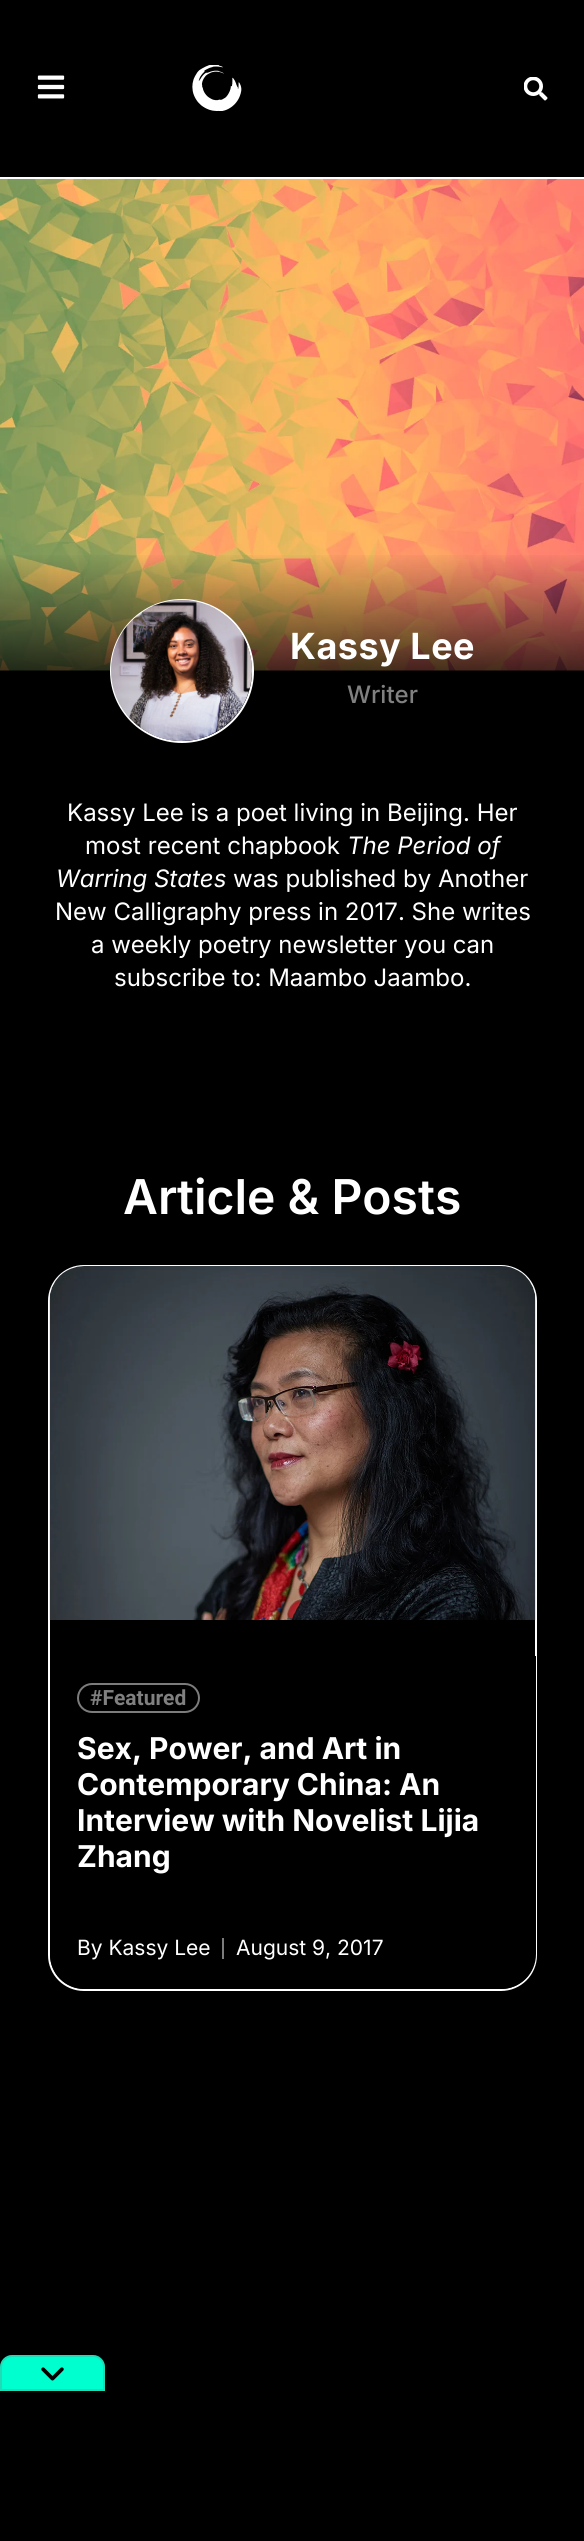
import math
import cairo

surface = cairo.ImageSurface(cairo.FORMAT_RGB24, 584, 2541)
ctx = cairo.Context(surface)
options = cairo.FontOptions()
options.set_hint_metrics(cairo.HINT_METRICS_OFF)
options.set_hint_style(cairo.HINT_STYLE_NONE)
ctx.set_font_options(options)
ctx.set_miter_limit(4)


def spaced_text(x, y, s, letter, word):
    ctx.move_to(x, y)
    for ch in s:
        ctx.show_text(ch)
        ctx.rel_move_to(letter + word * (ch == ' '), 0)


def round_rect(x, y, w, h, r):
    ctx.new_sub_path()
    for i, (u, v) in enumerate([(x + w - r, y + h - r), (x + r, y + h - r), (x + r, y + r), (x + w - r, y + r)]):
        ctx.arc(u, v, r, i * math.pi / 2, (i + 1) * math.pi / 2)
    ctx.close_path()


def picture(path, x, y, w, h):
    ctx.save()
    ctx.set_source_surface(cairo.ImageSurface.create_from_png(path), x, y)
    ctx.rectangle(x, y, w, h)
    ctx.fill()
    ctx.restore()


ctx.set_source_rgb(0, 0, 0)
ctx.paint()
ctx.set_source_rgb(1, 1, 1)
ctx.rectangle(0, 177, 584, 2)
ctx.fill()
picture("img1.png", 37, 75, 28, 24)
picture("img2.png", 192, 65, 50, 46)
picture("img3.png", 524, 77, 24, 24)
picture("img4.png", 0, 179, 584, 492)
gradient = cairo.LinearGradient(292, 153, 293, 671)
gradient.add_color_stop_rgba(0.77, 0, 0, 0, 0)
gradient.add_color_stop_rgba(1, 0, 0, 0, 0.73)
ctx.set_source(gradient)
ctx.rectangle(0, 555, 584, 116)
ctx.fill()
ctx.arc(182, 671, 71, 0, 2 * math.pi)
ctx.set_source_rgb(1, 1, 1)
ctx.stroke()
picture("img5.png", 111, 600, 141, 141)
ctx.select_font_face("Inter", cairo.FONT_SLANT_NORMAL, cairo.FONT_WEIGHT_BOLD)
ctx.set_font_size(36)
spaced_text(290, 659, "Kassy Lee", 0.5, 0)
ctx.select_font_face("Inter Medium")
ctx.set_font_size(24)
ctx.set_source_rgb(0.502, 0.502, 0.502)
ctx.move_to(347, 703)
ctx.show_text("Writer")
ctx.select_font_face("Inter")
ctx.set_source_rgb(1, 1, 1)
ctx.move_to(67, 821)
ctx.show_text("Kassy Lee is a poet living in Beijing. Her")
ctx.move_to(85, 854)
ctx.show_text("most recent chapbook")
ctx.select_font_face("Inter", cairo.FONT_SLANT_ITALIC)
ctx.move_to(347, 854)
ctx.show_text("The Period of")
ctx.move_to(56, 887)
ctx.show_text("Warring States")
ctx.select_font_face("Inter")
ctx.move_to(233, 887)
ctx.show_text("was published by Another")
ctx.move_to(55, 920)
ctx.show_text("New Calligraphy press in 2017. She writes")
ctx.move_to(91, 953)
ctx.show_text("a weekly poetry newsletter you can")
ctx.move_to(114, 986)
ctx.show_text("subscribe to: Maambo Jaambo.")
ctx.select_font_face("Inter SemiBold")
ctx.set_font_size(48)
ctx.move_to(123, 1214)
ctx.show_text("Article & Posts")
round_rect(49, 1266, 487, 724, 35)
ctx.stroke()
picture("img6.png", 49, 1266, 487, 354)
ctx.set_source_rgb(0, 0, 0)
ctx.new_path()
ctx.move_to(50, 1656)
ctx.line_to(536, 1656)
ctx.line_to(536, 1954)
ctx.curve_to(536, 1973.5, 520.5, 1989, 501, 1989)
ctx.line_to(85, 1989)
ctx.curve_to(65.5, 1989, 50, 1973.5, 50, 1954)
ctx.close_path()
ctx.fill()
round_rect(78, 1684, 121, 28, 14)
ctx.set_source_rgb(0.486, 0.486, 0.486)
ctx.stroke()
ctx.select_font_face("Roboto", cairo.FONT_SLANT_NORMAL, cairo.FONT_WEIGHT_BOLD)
ctx.set_font_size(21)
ctx.set_source_rgb(0.502, 0.502, 0.502)
ctx.move_to(90, 1705)
ctx.show_text("#Featured")
ctx.select_font_face("Inter", cairo.FONT_SLANT_NORMAL, cairo.FONT_WEIGHT_BOLD)
ctx.set_font_size(30)
ctx.set_source_rgb(1, 1, 1)
ctx.move_to(77, 1759)
ctx.show_text("Sex, Power, and Art in")
ctx.move_to(77, 1795)
ctx.show_text("Contemporary China: An")
ctx.move_to(77, 1831)
ctx.show_text("Interview with Novelist Lijia")
ctx.move_to(77, 1867)
ctx.show_text("Zhang")
ctx.select_font_face("Inter")
ctx.set_font_size(21)
ctx.move_to(77, 1955)
ctx.show_text("By Kassy Lee")
ctx.set_source_rgb(0.486, 0.486, 0.486)
ctx.rectangle(222, 1938, 2, 21)
ctx.fill()
ctx.set_source_rgb(1, 1, 1)
ctx.move_to(236, 1955)
ctx.show_text("August 9, 2017")
ctx.set_source_rgb(0, 1, 0.808)
ctx.new_path()
ctx.move_to(12, 2355)
ctx.line_to(93, 2355)
ctx.curve_to(99.5, 2355, 105, 2360.5, 105, 2367)
ctx.line_to(105, 2391)
ctx.line_to(0, 2391)
ctx.line_to(0, 2367)
ctx.curve_to(0, 2360.5, 5.5, 2355, 12, 2355)
ctx.close_path()
ctx.fill()
ctx.new_path()
ctx.move_to(12, 2356)
ctx.line_to(93, 2356)
ctx.curve_to(99, 2356, 104, 2361, 104, 2367)
ctx.line_to(104, 2390)
ctx.line_to(1, 2390)
ctx.line_to(1, 2367)
ctx.curve_to(1, 2361, 6, 2356, 12, 2356)
ctx.close_path()
ctx.set_source_rgba(0.478, 0.478, 0.478, 0.27)
ctx.stroke()
picture("img7.png", 41, 2367, 23, 14)
surface.write_to_png("page.png")
